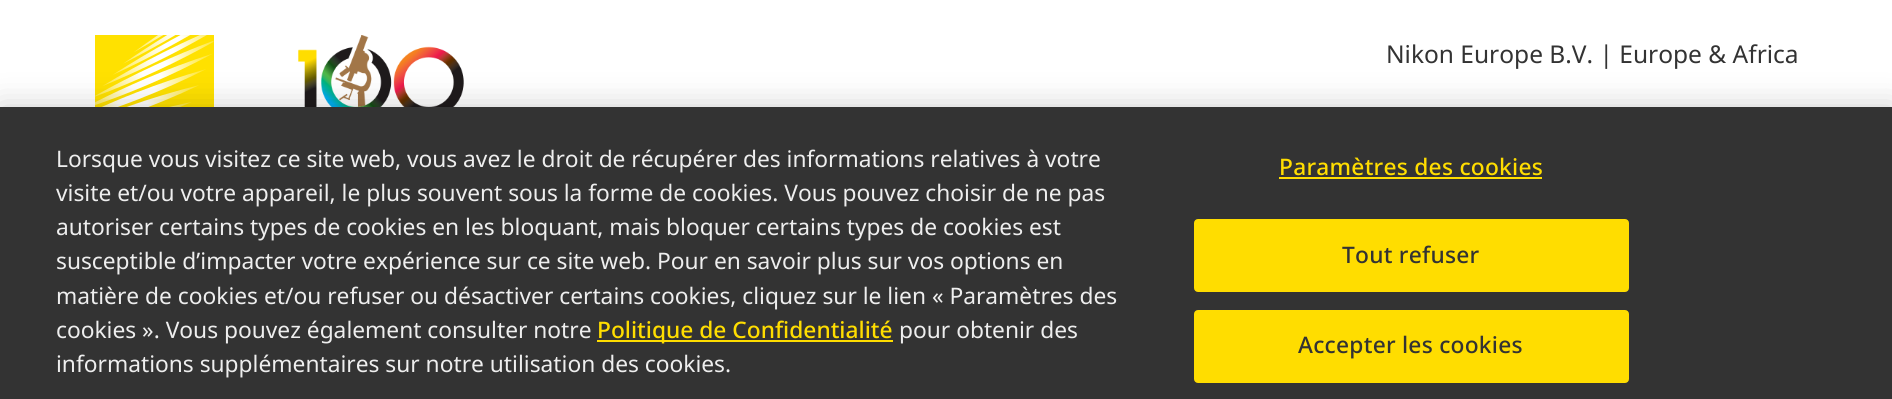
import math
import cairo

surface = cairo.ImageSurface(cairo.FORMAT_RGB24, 1892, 399)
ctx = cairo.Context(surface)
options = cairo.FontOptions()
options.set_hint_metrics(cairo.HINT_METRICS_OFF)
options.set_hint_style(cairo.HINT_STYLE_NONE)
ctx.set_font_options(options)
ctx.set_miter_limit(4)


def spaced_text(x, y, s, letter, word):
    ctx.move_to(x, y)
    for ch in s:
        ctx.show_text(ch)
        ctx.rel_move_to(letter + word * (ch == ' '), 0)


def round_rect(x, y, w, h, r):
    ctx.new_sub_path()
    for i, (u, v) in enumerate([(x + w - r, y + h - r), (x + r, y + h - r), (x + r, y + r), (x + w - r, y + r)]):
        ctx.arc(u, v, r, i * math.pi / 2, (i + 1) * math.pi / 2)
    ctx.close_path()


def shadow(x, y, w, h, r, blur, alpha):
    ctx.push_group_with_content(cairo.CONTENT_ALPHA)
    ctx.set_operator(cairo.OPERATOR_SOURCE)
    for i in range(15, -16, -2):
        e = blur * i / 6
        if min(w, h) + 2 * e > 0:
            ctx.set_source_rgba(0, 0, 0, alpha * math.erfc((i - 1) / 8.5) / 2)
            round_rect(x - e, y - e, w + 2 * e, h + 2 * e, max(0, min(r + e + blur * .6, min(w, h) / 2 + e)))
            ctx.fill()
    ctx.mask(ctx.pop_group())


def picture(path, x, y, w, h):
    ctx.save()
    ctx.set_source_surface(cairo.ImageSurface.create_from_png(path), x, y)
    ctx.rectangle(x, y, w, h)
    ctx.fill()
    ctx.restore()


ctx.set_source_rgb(1, 1, 1)
ctx.paint()
picture("img1.png", 95, 35, 119, 72)
picture("img2.png", 298, 35, 166, 72)
ctx.select_font_face("Noto Sans")
ctx.set_font_size(24.5)
ctx.set_source_rgb(0.2, 0.2, 0.2)
ctx.move_to(1386, 63)
ctx.show_text("Nikon Europe B.V. | Europe & Africa")
ctx.set_source_rgb(0, 0, 0)
shadow(0, 107, 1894, 292, 0, 16, 0.2)
ctx.set_source_rgb(0.2, 0.2, 0.2)
ctx.rectangle(0, 107, 1892, 292)
ctx.fill()
ctx.set_font_size(22.75)
ctx.set_source_rgb(0.933, 0.933, 0.933)
ctx.move_to(56, 167)
ctx.show_text("Lorsque vous visitez ce site web, vous avez le droit de récupérer des informations relatives à votre")
ctx.move_to(56, 201)
ctx.show_text("visite et/ou votre appareil, le plus souvent sous la forme de cookies. Vous pouvez choisir de ne pas")
ctx.move_to(56, 235)
ctx.show_text("autoriser certains types de cookies en les bloquant, mais bloquer certains types de cookies est")
ctx.move_to(56, 269)
ctx.show_text("susceptible d’impacter votre expérience sur ce site web. Pour en savoir plus sur vos options en")
ctx.move_to(56, 304)
ctx.show_text("matière de cookies et/ou refuser ou désactiver certains cookies, cliquez sur le lien « Paramètres des")
ctx.move_to(56, 338)
ctx.show_text("cookies ». Vous pouvez également consulter notre")
ctx.set_source_rgb(1, 0.867, 0)
ctx.rectangle(597, 340, 296, 2)
ctx.fill()
ctx.select_font_face("Noto Sans Medium")
ctx.move_to(597, 338)
ctx.show_text("Politique de Confidentialité")
ctx.select_font_face("Noto Sans")
ctx.set_source_rgb(0.933, 0.933, 0.933)
ctx.move_to(899, 338)
ctx.show_text("pour obtenir des")
ctx.move_to(56, 372)
ctx.show_text("informations supplémentaires sur notre utilisation des cookies.")
ctx.select_font_face("Noto Sans Medium")
ctx.set_source_rgb(1, 0.867, 0)
spaced_text(1279, 175, "Paramètres des cookies", 0.25, 0)
ctx.rectangle(1279, 177, 263, 2)
ctx.fill()
round_rect(1195, 220, 433, 71, 3)
ctx.fill_preserve()
ctx.stroke()
ctx.set_source_rgb(0.2, 0.2, 0.2)
spaced_text(1342, 263, "Tout refuser", 0.25, 0)
ctx.set_source_rgb(1, 0.867, 0)
round_rect(1195, 311, 433, 71, 3)
ctx.fill_preserve()
ctx.stroke()
ctx.set_source_rgb(0.2, 0.2, 0.2)
spaced_text(1298, 353, "Accepter les cookies", 0.25, 0)
surface.write_to_png("page.png")
